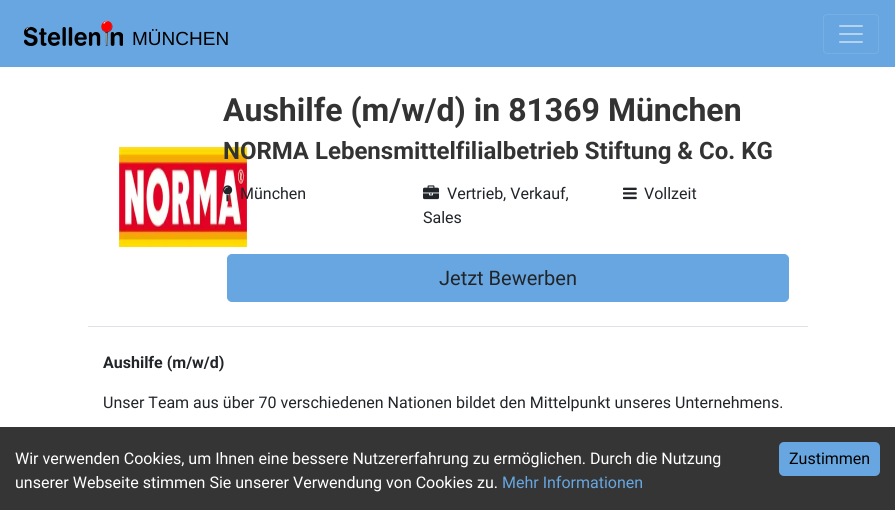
import math
import cairo

surface = cairo.ImageSurface(cairo.FORMAT_RGB24, 895, 510)
ctx = cairo.Context(surface)
options = cairo.FontOptions()
options.set_hint_metrics(cairo.HINT_METRICS_OFF)
options.set_hint_style(cairo.HINT_STYLE_NONE)
ctx.set_font_options(options)
ctx.set_miter_limit(4)


def round_rect(x, y, w, h, r):
    ctx.new_sub_path()
    for i, (u, v) in enumerate([(x + w - r, y + h - r), (x + r, y + h - r), (x + r, y + r), (x + w - r, y + r)]):
        ctx.arc(u, v, r, i * math.pi / 2, (i + 1) * math.pi / 2)
    ctx.close_path()


def picture(path, x, y, w, h):
    ctx.save()
    ctx.set_source_surface(cairo.ImageSurface.create_from_png(path), x, y)
    ctx.rectangle(x, y, w, h)
    ctx.fill()
    ctx.restore()


ctx.set_source_rgb(1, 1, 1)
ctx.paint()
ctx.set_source_rgb(0.404, 0.651, 0.878)
ctx.rectangle(0, 0, 895, 67)
ctx.fill()
picture("img1.png", 24, 21, 99, 25)
ctx.select_font_face("Liberation Sans")
ctx.set_font_size(19)
ctx.set_source_rgb(0, 0, 0)
ctx.move_to(132, 45)
ctx.show_text("MÜNCHEN")
round_rect(823.5, 14.5, 55, 39, 3.5)
ctx.set_source_rgb(0.463, 0.686, 0.89)
ctx.set_line_width(1)
ctx.stroke()
picture("img2.png", 839, 25, 24, 18)
ctx.set_source_rgb(0.208, 0.208, 0.208)
ctx.rectangle(0, 427, 895, 83)
ctx.fill()
ctx.select_font_face("Roboto")
ctx.set_font_size(16)
ctx.set_source_rgb(1, 1, 1)
ctx.move_to(15, 464)
ctx.show_text("Wir verwenden Cookies, um Ihnen eine bessere Nutzererfahrung zu ermöglichen. Durch die Nutzung")
ctx.move_to(15, 488)
ctx.show_text("unserer Webseite stimmen Sie unserer Verwendung von Cookies zu.")
ctx.set_source_rgb(0.404, 0.651, 0.878)
ctx.move_to(502, 488)
ctx.show_text("Mehr Informationen")
round_rect(779, 442, 101, 34, 5)
ctx.fill()
ctx.set_source_rgb(0, 0, 0)
ctx.move_to(789, 464)
ctx.show_text("Zustimmen")
ctx.set_source_rgb(0.871, 0.886, 0.902)
ctx.rectangle(88, 326, 720, 1)
ctx.fill()
picture("img3.png", 119, 147, 128, 100)
ctx.select_font_face("Roboto", cairo.FONT_SLANT_NORMAL, cairo.FONT_WEIGHT_BOLD)
ctx.set_font_size(32)
ctx.set_source_rgb(0.2, 0.2, 0.2)
ctx.move_to(223, 121)
ctx.show_text("Aushilfe (m/w/d) in 81369 München")
ctx.set_font_size(24)
ctx.move_to(223, 159)
ctx.show_text("NORMA Lebensmittelfilialbetrieb Stiftung & Co. KG")
picture("img4.png", 223, 185, 10, 17)
ctx.select_font_face("Roboto")
ctx.set_font_size(16)
ctx.set_source_rgb(0.129, 0.145, 0.161)
ctx.move_to(240, 199)
ctx.show_text("München")
picture("img5.png", 423, 185, 16, 15)
ctx.move_to(447, 199)
ctx.show_text("Vertrieb, Verkauf,")
ctx.move_to(423, 223)
ctx.show_text("Sales")
picture("img6.png", 623, 187, 14, 13)
ctx.move_to(644, 199)
ctx.show_text("Vollzeit")
ctx.set_source_rgb(0.404, 0.651, 0.878)
round_rect(227.5, 254.5, 561, 47, 4.5)
ctx.fill_preserve()
ctx.stroke()
ctx.set_font_size(20)
ctx.set_source_rgb(0.129, 0.145, 0.161)
ctx.move_to(439, 285)
ctx.show_text("Jetzt Bewerben")
ctx.select_font_face("Roboto", cairo.FONT_SLANT_NORMAL, cairo.FONT_WEIGHT_BOLD)
ctx.set_font_size(16)
ctx.move_to(103, 368)
ctx.show_text("Aushilfe (m/w/d)")
ctx.select_font_face("Roboto")
ctx.move_to(103, 408)
ctx.show_text("Unser Team aus über 70 verschiedenen Nationen bildet den Mittelpunkt unseres Unternehmens.")
surface.write_to_png("page.png")
